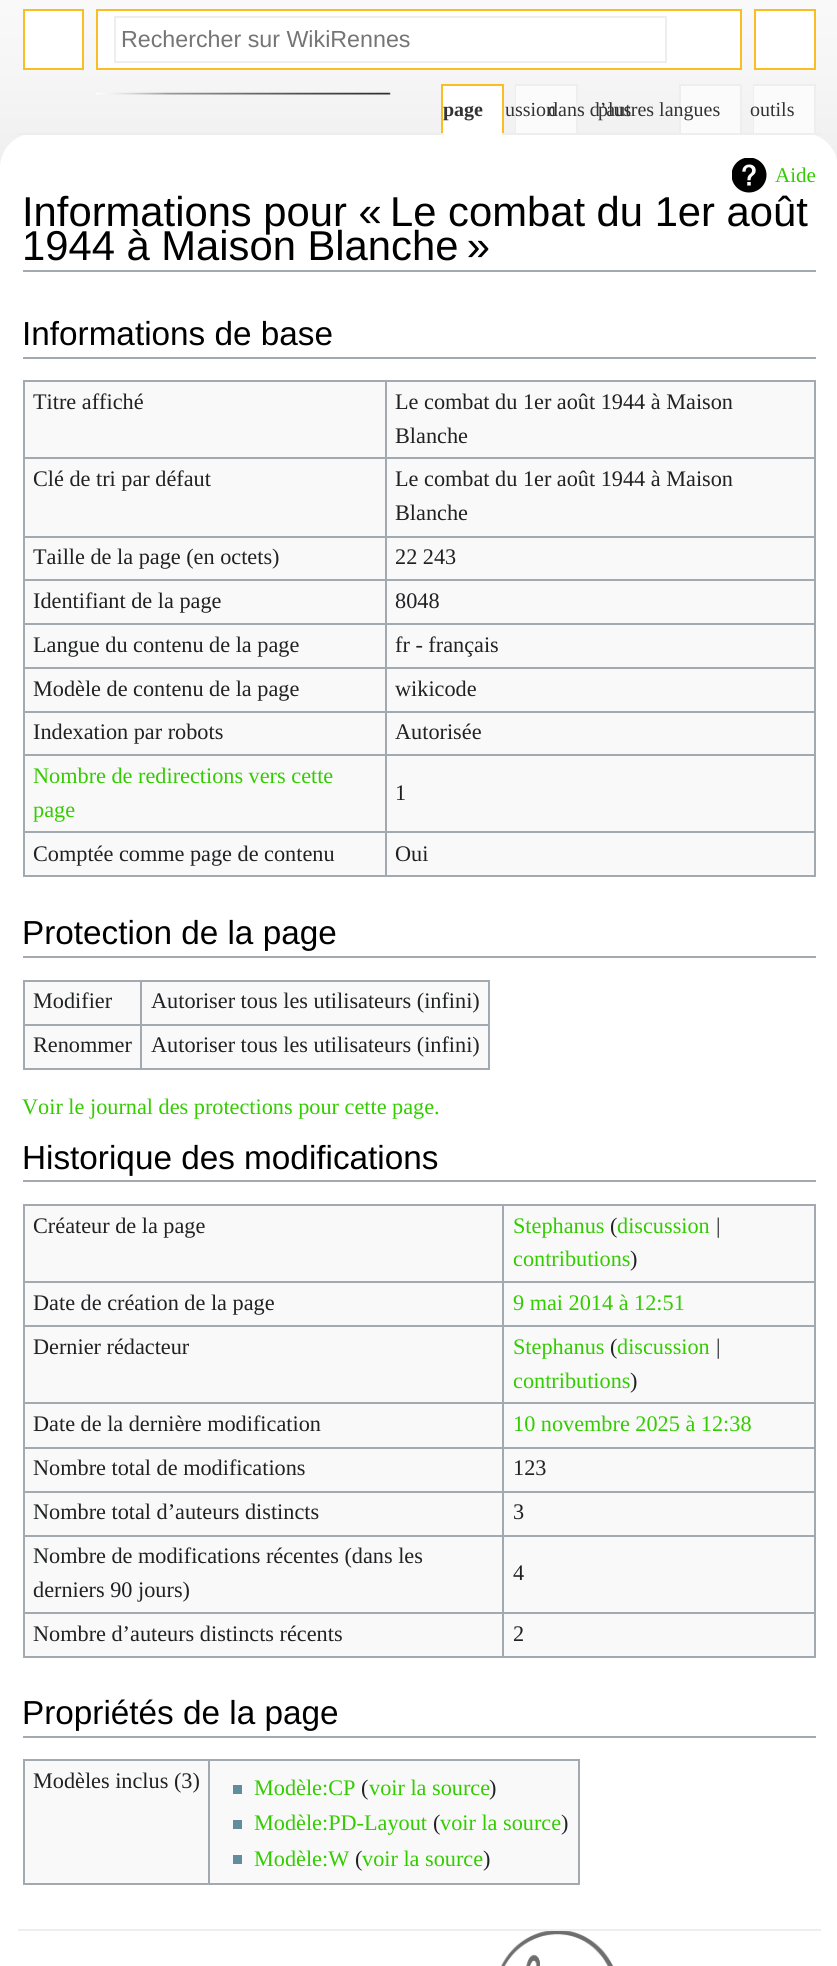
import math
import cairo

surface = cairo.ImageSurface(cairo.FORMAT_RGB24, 837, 1966)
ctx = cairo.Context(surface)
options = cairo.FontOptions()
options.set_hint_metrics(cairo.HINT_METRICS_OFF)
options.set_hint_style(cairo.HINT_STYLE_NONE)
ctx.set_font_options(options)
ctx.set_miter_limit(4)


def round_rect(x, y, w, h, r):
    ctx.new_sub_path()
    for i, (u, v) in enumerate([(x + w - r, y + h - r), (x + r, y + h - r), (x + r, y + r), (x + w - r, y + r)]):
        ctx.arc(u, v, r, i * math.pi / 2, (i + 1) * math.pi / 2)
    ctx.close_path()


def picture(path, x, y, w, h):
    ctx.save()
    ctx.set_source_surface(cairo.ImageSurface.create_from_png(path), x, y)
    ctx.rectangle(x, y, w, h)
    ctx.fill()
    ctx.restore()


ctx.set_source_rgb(1, 1, 1)
ctx.paint()
picture("img1.png", 0, 0, 837, 168)
ctx.set_source_rgb(1, 1, 1)
ctx.rectangle(24, 10, 59, 59)
ctx.fill_preserve()
ctx.set_source_rgb(0.98, 0.741, 0.137)
ctx.stroke()
ctx.set_source_rgb(1, 1, 1)
ctx.rectangle(97, 10, 644, 59)
ctx.fill_preserve()
ctx.set_source_rgb(0.98, 0.741, 0.137)
ctx.stroke()
ctx.rectangle(115, 17, 551, 45)
ctx.set_source_rgb(0.933, 0.933, 0.933)
ctx.stroke()
ctx.select_font_face("Liberation Sans")
ctx.set_font_size(23.25)
ctx.set_source_rgb(0.459, 0.459, 0.459)
ctx.move_to(121, 47)
ctx.show_text("Rechercher sur WikiRennes")
picture("img2.png", 96, 92, 295, 3)
ctx.set_source_rgb(1, 1, 1)
ctx.rectangle(755, 10, 60, 59)
ctx.fill_preserve()
ctx.set_source_rgb(0.98, 0.741, 0.137)
ctx.stroke()
ctx.set_source_rgb(0.933, 0.933, 0.933)
ctx.rectangle(515, 84, 63, 2)
ctx.fill()
ctx.rectangle(576, 84, 2, 51)
ctx.fill()
ctx.rectangle(515, 84, 2, 51)
ctx.fill()
ctx.set_source_rgb(0.984, 0.984, 0.984)
ctx.rectangle(516, 86, 60, 47)
ctx.fill()
ctx.select_font_face("Liberation Serif")
ctx.set_font_size(20)
ctx.set_source_rgb(0.2, 0.2, 0.2)
ctx.move_to(505, 116)
ctx.show_text("ussion")
ctx.set_source_rgb(0.933, 0.933, 0.933)
ctx.rectangle(679, 84, 63, 2)
ctx.fill()
ctx.rectangle(740, 84, 2, 51)
ctx.fill()
ctx.rectangle(679, 84, 2, 51)
ctx.fill()
ctx.set_source_rgb(0.984, 0.984, 0.984)
ctx.rectangle(681, 86, 59, 47)
ctx.fill()
ctx.set_source_rgb(0.2, 0.2, 0.2)
ctx.move_to(598, 116)
ctx.show_text("plus")
ctx.move_to(548, 116)
ctx.show_text("dans d’autres langues")
ctx.set_source_rgb(0.98, 0.741, 0.137)
ctx.rectangle(441, 84, 63, 2)
ctx.fill()
ctx.rectangle(502, 84, 2, 51)
ctx.fill()
ctx.rectangle(441, 84, 2, 51)
ctx.fill()
ctx.set_source_rgb(0.933, 0.933, 0.933)
ctx.rectangle(753, 84, 63, 2)
ctx.fill()
ctx.rectangle(814, 84, 2, 51)
ctx.fill()
ctx.rectangle(753, 84, 2, 51)
ctx.fill()
ctx.set_source_rgb(1, 1, 1)
round_rect(0, 133, 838, 1797, 35)
ctx.fill()
ctx.set_source_rgb(0.933, 0.933, 0.933)
ctx.rectangle(18, 133, 803, 2)
ctx.fill()
ctx.set_source_rgb(1, 1, 1)
ctx.rectangle(443, 86, 59, 49)
ctx.fill()
ctx.select_font_face("Liberation Serif", cairo.FONT_SLANT_NORMAL, cairo.FONT_WEIGHT_BOLD)
ctx.set_source_rgb(0.2, 0.2, 0.2)
ctx.move_to(443, 116)
ctx.show_text("page")
ctx.set_source_rgb(0.984, 0.984, 0.984)
ctx.rectangle(754, 86, 60, 47)
ctx.fill()
ctx.select_font_face("Liberation Serif")
ctx.set_source_rgb(0.2, 0.2, 0.2)
ctx.move_to(750, 116)
ctx.show_text("outils")
picture("img3.png", 501, 1931, 113, 35)
ctx.set_source_rgb(0.933, 0.933, 0.933)
ctx.rectangle(18, 1929, 803, 2)
ctx.fill()
picture("img4.png", 732, 158, 35, 35)
ctx.set_font_size(21)
ctx.set_source_rgb(0.2, 0.8, 0)
ctx.move_to(775, 182)
ctx.show_text("Aide")
ctx.set_source_rgb(0.635, 0.663, 0.694)
ctx.rectangle(23, 270, 793, 2)
ctx.fill()
ctx.select_font_face("Liberation Sans")
ctx.set_font_size(41.75)
ctx.set_source_rgb(0, 0, 0)
ctx.move_to(22, 226)
ctx.show_text("Informations pour « Le combat du 1er août")
ctx.move_to(22, 260)
ctx.show_text("1944 à Maison Blanche »")
ctx.set_source_rgb(0.635, 0.663, 0.694)
ctx.rectangle(23, 357, 793, 2)
ctx.fill()
ctx.set_font_size(33.3)
ctx.set_source_rgb(0, 0, 0)
ctx.move_to(22, 345)
ctx.show_text("Informations de base")
ctx.set_source_rgb(0.973, 0.976, 0.98)
ctx.rectangle(25, 382, 789, 493)
ctx.fill()
ctx.set_source_rgb(0.635, 0.663, 0.694)
ctx.rectangle(23, 380, 793, 2)
ctx.fill()
ctx.rectangle(814, 380, 2, 497)
ctx.fill()
ctx.rectangle(23, 875, 793, 2)
ctx.fill()
ctx.rectangle(23, 380, 2, 497)
ctx.fill()
ctx.select_font_face("Liberation Serif")
ctx.set_font_size(22.25)
ctx.set_source_rgb(0.125, 0.129, 0.133)
ctx.move_to(33, 409)
ctx.show_text("Titre affiché")
ctx.set_source_rgb(0.635, 0.663, 0.694)
ctx.rectangle(385, 457, 431, 2)
ctx.fill()
ctx.rectangle(385, 536, 431, 2)
ctx.fill()
ctx.rectangle(385, 579, 431, 2)
ctx.fill()
ctx.rectangle(385, 623, 431, 2)
ctx.fill()
ctx.rectangle(385, 667, 431, 2)
ctx.fill()
ctx.rectangle(385, 711, 431, 2)
ctx.fill()
ctx.rectangle(385, 754, 431, 2)
ctx.fill()
ctx.rectangle(385, 831, 431, 2)
ctx.fill()
ctx.rectangle(385, 831, 2, 46)
ctx.fill()
ctx.rectangle(23, 831, 364, 2)
ctx.fill()
ctx.rectangle(385, 754, 2, 79)
ctx.fill()
ctx.rectangle(23, 754, 364, 2)
ctx.fill()
ctx.rectangle(385, 711, 2, 45)
ctx.fill()
ctx.rectangle(23, 711, 364, 2)
ctx.fill()
ctx.rectangle(385, 667, 2, 45)
ctx.fill()
ctx.rectangle(23, 667, 364, 2)
ctx.fill()
ctx.rectangle(385, 623, 2, 46)
ctx.fill()
ctx.rectangle(23, 623, 364, 2)
ctx.fill()
ctx.rectangle(385, 579, 2, 46)
ctx.fill()
ctx.rectangle(23, 579, 364, 2)
ctx.fill()
ctx.rectangle(385, 536, 2, 45)
ctx.fill()
ctx.rectangle(23, 536, 364, 2)
ctx.fill()
ctx.rectangle(385, 457, 2, 80)
ctx.fill()
ctx.rectangle(23, 457, 364, 2)
ctx.fill()
ctx.rectangle(385, 380, 2, 79)
ctx.fill()
ctx.set_source_rgb(0.125, 0.129, 0.133)
ctx.move_to(395, 409)
ctx.show_text("Le combat du 1er août 1944 à Maison")
ctx.move_to(395, 443)
ctx.show_text("Blanche")
ctx.move_to(33, 486)
ctx.show_text("Clé de tri par défaut")
ctx.move_to(395, 486)
ctx.show_text("Le combat du 1er août 1944 à Maison")
ctx.move_to(395, 520)
ctx.show_text("Blanche")
ctx.move_to(33, 564)
ctx.show_text("Taille de la page (en octets)")
ctx.move_to(395, 564)
ctx.show_text("22 243")
ctx.move_to(33, 608)
ctx.show_text("Identifiant de la page")
ctx.move_to(395, 608)
ctx.show_text("8048")
ctx.move_to(33, 652)
ctx.show_text("Langue du contenu de la page")
ctx.move_to(395, 652)
ctx.show_text("fr - français")
ctx.move_to(33, 696)
ctx.show_text("Modèle de contenu de la page")
ctx.move_to(395, 696)
ctx.show_text("wikicode")
ctx.move_to(33, 739)
ctx.show_text("Indexation par robots")
ctx.move_to(395, 739)
ctx.show_text("Autorisée")
ctx.set_source_rgb(0.2, 0.8, 0)
ctx.move_to(33, 783)
ctx.show_text("Nombre de redirections vers cette")
ctx.move_to(33, 817)
ctx.show_text("page")
ctx.set_source_rgb(0.125, 0.129, 0.133)
ctx.move_to(395, 800)
ctx.show_text("1")
ctx.move_to(33, 861)
ctx.show_text("Comptée comme page de contenu")
ctx.move_to(395, 861)
ctx.show_text("Oui")
ctx.set_source_rgb(0.635, 0.663, 0.694)
ctx.rectangle(23, 956, 793, 2)
ctx.fill()
ctx.select_font_face("Liberation Sans")
ctx.set_font_size(33.3)
ctx.set_source_rgb(0, 0, 0)
ctx.move_to(22, 944)
ctx.show_text("Protection de la page")
ctx.set_source_rgb(0.973, 0.976, 0.98)
ctx.rectangle(25, 982, 463, 86)
ctx.fill()
ctx.set_source_rgb(0.635, 0.663, 0.694)
ctx.rectangle(23, 980, 467, 2)
ctx.fill()
ctx.rectangle(488, 980, 2, 89)
ctx.fill()
ctx.rectangle(23, 1068, 467, 2)
ctx.fill()
ctx.rectangle(23, 980, 2, 89)
ctx.fill()
ctx.select_font_face("Liberation Serif")
ctx.set_font_size(22.25)
ctx.set_source_rgb(0.125, 0.129, 0.133)
ctx.move_to(33, 1008)
ctx.show_text("Modifier")
ctx.set_source_rgb(0.635, 0.663, 0.694)
ctx.rectangle(140, 1024, 350, 2)
ctx.fill()
ctx.rectangle(140, 1024, 2, 45)
ctx.fill()
ctx.rectangle(23, 1024, 119, 2)
ctx.fill()
ctx.rectangle(140, 980, 2, 46)
ctx.fill()
ctx.set_source_rgb(0.125, 0.129, 0.133)
ctx.move_to(151, 1008)
ctx.show_text("Autoriser tous les utilisateurs (infini)")
ctx.move_to(33, 1052)
ctx.show_text("Renommer")
ctx.move_to(151, 1052)
ctx.show_text("Autoriser tous les utilisateurs (infini)")
ctx.set_source_rgb(0.2, 0.8, 0)
ctx.move_to(22, 1114)
ctx.show_text("Voir le journal des protections pour cette page.")
ctx.set_source_rgb(0.635, 0.663, 0.694)
ctx.rectangle(23, 1180, 793, 2)
ctx.fill()
ctx.select_font_face("Liberation Sans")
ctx.set_font_size(33.3)
ctx.set_source_rgb(0, 0, 0)
ctx.move_to(22, 1169)
ctx.show_text("Historique des modifications")
ctx.set_source_rgb(0.973, 0.976, 0.98)
ctx.rectangle(25, 1206, 789, 450)
ctx.fill()
ctx.set_source_rgb(0.635, 0.663, 0.694)
ctx.rectangle(23, 1204, 793, 2)
ctx.fill()
ctx.rectangle(814, 1204, 2, 453)
ctx.fill()
ctx.rectangle(23, 1656, 793, 2)
ctx.fill()
ctx.rectangle(23, 1204, 2, 453)
ctx.fill()
ctx.select_font_face("Liberation Serif")
ctx.set_font_size(22.25)
ctx.set_source_rgb(0.125, 0.129, 0.133)
ctx.move_to(33, 1233)
ctx.show_text("Créateur de la page")
ctx.set_source_rgb(0.635, 0.663, 0.694)
ctx.rectangle(502, 1281, 314, 2)
ctx.fill()
ctx.rectangle(502, 1325, 314, 2)
ctx.fill()
ctx.rectangle(502, 1402, 314, 2)
ctx.fill()
ctx.rectangle(502, 1447, 314, 2)
ctx.fill()
ctx.rectangle(502, 1491, 314, 2)
ctx.fill()
ctx.rectangle(502, 1535, 314, 2)
ctx.fill()
ctx.rectangle(502, 1612, 314, 2)
ctx.fill()
ctx.rectangle(502, 1612, 2, 45)
ctx.fill()
ctx.rectangle(23, 1612, 481, 2)
ctx.fill()
ctx.rectangle(502, 1535, 2, 79)
ctx.fill()
ctx.rectangle(23, 1535, 481, 2)
ctx.fill()
ctx.rectangle(502, 1491, 2, 46)
ctx.fill()
ctx.rectangle(23, 1491, 481, 2)
ctx.fill()
ctx.rectangle(502, 1447, 2, 46)
ctx.fill()
ctx.rectangle(23, 1447, 481, 2)
ctx.fill()
ctx.rectangle(502, 1402, 2, 47)
ctx.fill()
ctx.rectangle(23, 1402, 481, 2)
ctx.fill()
ctx.rectangle(502, 1325, 2, 79)
ctx.fill()
ctx.rectangle(23, 1325, 481, 2)
ctx.fill()
ctx.rectangle(502, 1281, 2, 46)
ctx.fill()
ctx.rectangle(23, 1281, 481, 2)
ctx.fill()
ctx.rectangle(502, 1204, 2, 79)
ctx.fill()
ctx.set_source_rgb(0.2, 0.8, 0)
ctx.move_to(513, 1233)
ctx.show_text("Stephanus")
ctx.set_source_rgb(0.125, 0.129, 0.133)
ctx.move_to(610, 1233)
ctx.show_text("(")
ctx.set_source_rgb(0.2, 0.8, 0)
ctx.move_to(617, 1233)
ctx.show_text("discussion")
ctx.set_source_rgb(0.125, 0.129, 0.133)
ctx.move_to(716, 1233)
ctx.show_text("|")
ctx.set_source_rgb(0.2, 0.8, 0)
ctx.move_to(513, 1266)
ctx.show_text("contributions")
ctx.set_source_rgb(0.125, 0.129, 0.133)
ctx.move_to(630, 1266)
ctx.show_text(")")
ctx.move_to(33, 1310)
ctx.show_text("Date de création de la page")
ctx.set_source_rgb(0.2, 0.8, 0)
ctx.move_to(513, 1310)
ctx.show_text("9 mai 2014 à 12:51")
ctx.set_source_rgb(0.125, 0.129, 0.133)
ctx.move_to(33, 1354)
ctx.show_text("Dernier rédacteur")
ctx.set_source_rgb(0.2, 0.8, 0)
ctx.move_to(513, 1354)
ctx.show_text("Stephanus")
ctx.set_source_rgb(0.125, 0.129, 0.133)
ctx.move_to(610, 1354)
ctx.show_text("(")
ctx.set_source_rgb(0.2, 0.8, 0)
ctx.move_to(617, 1354)
ctx.show_text("discussion")
ctx.set_source_rgb(0.125, 0.129, 0.133)
ctx.move_to(716, 1354)
ctx.show_text("|")
ctx.set_source_rgb(0.2, 0.8, 0)
ctx.move_to(513, 1388)
ctx.show_text("contributions")
ctx.set_source_rgb(0.125, 0.129, 0.133)
ctx.move_to(630, 1388)
ctx.show_text(")")
ctx.move_to(33, 1431)
ctx.show_text("Date de la dernière modification")
ctx.set_source_rgb(0.2, 0.8, 0)
ctx.move_to(513, 1431)
ctx.show_text("10 novembre 2025 à 12:38")
ctx.set_source_rgb(0.125, 0.129, 0.133)
ctx.move_to(33, 1475)
ctx.show_text("Nombre total de modifications")
ctx.move_to(513, 1475)
ctx.show_text("123")
ctx.move_to(33, 1519)
ctx.show_text("Nombre total d’auteurs distincts")
ctx.move_to(513, 1519)
ctx.show_text("3")
ctx.move_to(33, 1563)
ctx.show_text("Nombre de modifications récentes (dans les")
ctx.move_to(33, 1597)
ctx.show_text("derniers 90 jours)")
ctx.move_to(513, 1580)
ctx.show_text("4")
ctx.move_to(33, 1641)
ctx.show_text("Nombre d’auteurs distincts récents")
ctx.move_to(513, 1641)
ctx.show_text("2")
ctx.set_source_rgb(0.635, 0.663, 0.694)
ctx.rectangle(23, 1736, 793, 2)
ctx.fill()
ctx.select_font_face("Liberation Sans")
ctx.set_font_size(33.3)
ctx.set_source_rgb(0, 0, 0)
ctx.move_to(22, 1724)
ctx.show_text("Propriétés de la page")
ctx.set_source_rgb(0.973, 0.976, 0.98)
ctx.rectangle(25, 1761, 553, 122)
ctx.fill()
ctx.set_source_rgb(0.635, 0.663, 0.694)
ctx.rectangle(23, 1759, 556, 2)
ctx.fill()
ctx.rectangle(578, 1759, 2, 126)
ctx.fill()
ctx.rectangle(23, 1883, 556, 2)
ctx.fill()
ctx.rectangle(23, 1759, 2, 126)
ctx.fill()
ctx.select_font_face("Liberation Serif")
ctx.set_font_size(22.25)
ctx.set_source_rgb(0.125, 0.129, 0.133)
ctx.move_to(33, 1788)
ctx.show_text("Modèles inclus (3)")
ctx.set_source_rgb(0.635, 0.663, 0.694)
ctx.rectangle(208, 1759, 2, 126)
ctx.fill()
ctx.set_source_rgb(0.388, 0.549, 0.612)
ctx.rectangle(233, 1785, 9, 9)
ctx.fill()
ctx.set_source_rgb(0.2, 0.8, 0)
ctx.move_to(254, 1795)
ctx.show_text("Modèle:CP")
ctx.set_source_rgb(0.125, 0.129, 0.133)
ctx.move_to(361, 1795)
ctx.show_text("(")
ctx.set_source_rgb(0.2, 0.8, 0)
ctx.move_to(369, 1795)
ctx.show_text("voir la source")
ctx.set_source_rgb(0.125, 0.129, 0.133)
ctx.move_to(489, 1795)
ctx.show_text(")")
ctx.set_source_rgb(0.388, 0.549, 0.612)
ctx.rectangle(233, 1820, 9, 9)
ctx.fill()
ctx.set_source_rgb(0.2, 0.8, 0)
ctx.move_to(254, 1830)
ctx.show_text("Modèle:PD-Layout")
ctx.set_source_rgb(0.125, 0.129, 0.133)
ctx.move_to(433, 1830)
ctx.show_text("(")
ctx.set_source_rgb(0.2, 0.8, 0)
ctx.move_to(440, 1830)
ctx.show_text("voir la source")
ctx.set_source_rgb(0.125, 0.129, 0.133)
ctx.move_to(561, 1830)
ctx.show_text(")")
ctx.set_source_rgb(0.388, 0.549, 0.612)
ctx.rectangle(233, 1855, 9, 9)
ctx.fill()
ctx.set_source_rgb(0.2, 0.8, 0)
ctx.move_to(254, 1866)
ctx.show_text("Modèle:W")
ctx.set_source_rgb(0.125, 0.129, 0.133)
ctx.move_to(355, 1866)
ctx.show_text("(")
ctx.set_source_rgb(0.2, 0.8, 0)
ctx.move_to(362, 1866)
ctx.show_text("voir la source")
ctx.set_source_rgb(0.125, 0.129, 0.133)
ctx.move_to(483, 1866)
ctx.show_text(")")
surface.write_to_png("page.png")
